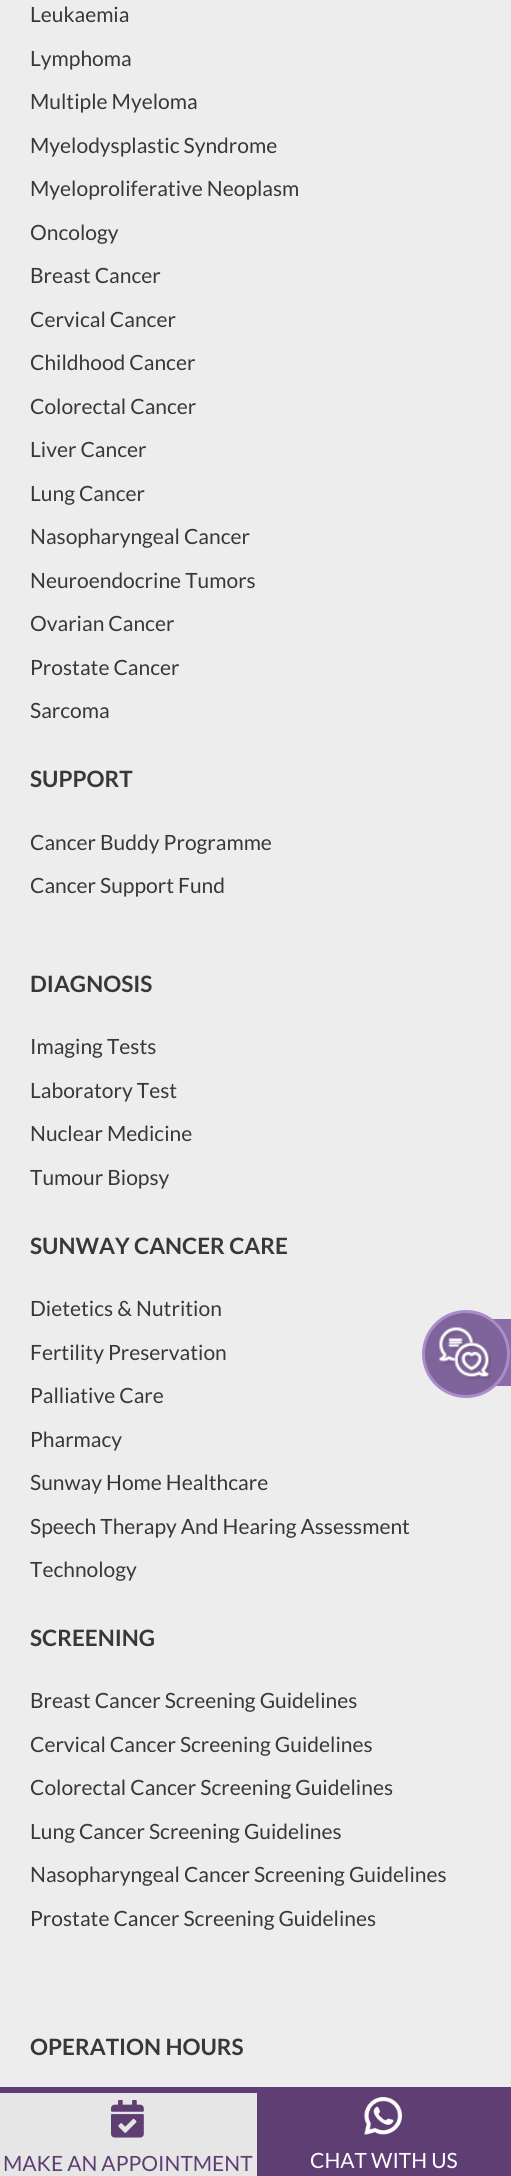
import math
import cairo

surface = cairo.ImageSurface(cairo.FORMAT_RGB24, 511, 2176)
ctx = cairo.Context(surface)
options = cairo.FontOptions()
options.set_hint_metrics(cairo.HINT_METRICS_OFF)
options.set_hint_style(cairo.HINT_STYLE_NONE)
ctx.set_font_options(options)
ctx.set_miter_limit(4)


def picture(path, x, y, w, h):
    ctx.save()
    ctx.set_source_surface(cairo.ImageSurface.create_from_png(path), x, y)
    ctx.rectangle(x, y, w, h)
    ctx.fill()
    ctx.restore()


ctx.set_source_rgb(0.929, 0.929, 0.929)
ctx.paint()
ctx.select_font_face("Lato")
ctx.set_font_size(21)
ctx.set_source_rgb(0.22, 0.22, 0.22)
ctx.move_to(30, 22)
ctx.show_text("Leukaemia")
ctx.move_to(30, 66)
ctx.show_text("Lymphoma")
ctx.move_to(30, 109)
ctx.show_text("Multiple Myeloma")
ctx.move_to(30, 153)
ctx.show_text("Myelodysplastic Syndrome")
ctx.move_to(30, 196)
ctx.show_text("Myeloproliferative Neoplasm")
ctx.move_to(30, 240)
ctx.show_text("Oncology")
ctx.move_to(30, 283)
ctx.show_text("Breast Cancer")
ctx.move_to(30, 327)
ctx.show_text("Cervical Cancer")
ctx.move_to(30, 370)
ctx.show_text("Childhood Cancer")
ctx.move_to(30, 414)
ctx.show_text("Colorectal Cancer")
ctx.move_to(30, 457)
ctx.show_text("Liver Cancer")
ctx.move_to(30, 501)
ctx.show_text("Lung Cancer")
ctx.move_to(30, 544)
ctx.show_text("Nasopharyngeal Cancer")
ctx.move_to(30, 588)
ctx.show_text("Neuroendocrine Tumors")
ctx.move_to(30, 631)
ctx.show_text("Ovarian Cancer")
ctx.move_to(30, 675)
ctx.show_text("Prostate Cancer")
ctx.move_to(30, 718)
ctx.show_text("Sarcoma")
ctx.select_font_face("Lato", cairo.FONT_SLANT_NORMAL, cairo.FONT_WEIGHT_BOLD)
ctx.set_font_size(22.5)
ctx.move_to(30, 787)
ctx.show_text("SUPPORT")
ctx.select_font_face("Lato")
ctx.set_font_size(21)
ctx.move_to(30, 850)
ctx.show_text("Cancer Buddy Programme")
ctx.move_to(30, 893)
ctx.show_text("Cancer Support Fund")
ctx.select_font_face("Lato", cairo.FONT_SLANT_NORMAL, cairo.FONT_WEIGHT_BOLD)
ctx.set_font_size(22.5)
ctx.move_to(30, 992)
ctx.show_text("DIAGNOSIS")
ctx.select_font_face("Lato")
ctx.set_font_size(21)
ctx.move_to(30, 1054)
ctx.show_text("Imaging Tests")
ctx.move_to(30, 1098)
ctx.show_text("Laboratory Test")
ctx.move_to(30, 1141)
ctx.show_text("Nuclear Medicine")
ctx.move_to(30, 1185)
ctx.show_text("Tumour Biopsy")
ctx.select_font_face("Lato", cairo.FONT_SLANT_NORMAL, cairo.FONT_WEIGHT_BOLD)
ctx.set_font_size(22.5)
ctx.move_to(30, 1254)
ctx.show_text("SUNWAY CANCER CARE")
ctx.select_font_face("Lato")
ctx.set_font_size(21)
ctx.move_to(30, 1316)
ctx.show_text("Dietetics & Nutrition")
ctx.move_to(30, 1360)
ctx.show_text("Fertility Preservation")
ctx.move_to(30, 1403)
ctx.show_text("Palliative Care")
ctx.move_to(30, 1447)
ctx.show_text("Pharmacy")
ctx.move_to(30, 1490)
ctx.show_text("Sunway Home Healthcare")
ctx.move_to(30, 1534)
ctx.show_text("Speech Therapy And Hearing Assessment")
ctx.move_to(30, 1577)
ctx.show_text("Technology")
ctx.select_font_face("Lato", cairo.FONT_SLANT_NORMAL, cairo.FONT_WEIGHT_BOLD)
ctx.set_font_size(22.5)
ctx.move_to(30, 1646)
ctx.show_text("SCREENING")
ctx.select_font_face("Lato")
ctx.set_font_size(21)
ctx.move_to(30, 1708)
ctx.show_text("Breast Cancer Screening Guidelines")
ctx.move_to(30, 1752)
ctx.show_text("Cervical Cancer Screening Guidelines")
ctx.move_to(30, 1795)
ctx.show_text("Colorectal Cancer Screening Guidelines")
ctx.move_to(30, 1839)
ctx.show_text("Lung Cancer Screening Guidelines")
ctx.move_to(30, 1882)
ctx.show_text("Nasopharyngeal Cancer Screening Guidelines")
ctx.move_to(30, 1926)
ctx.show_text("Prostate Cancer Screening Guidelines")
ctx.select_font_face("Lato", cairo.FONT_SLANT_NORMAL, cairo.FONT_WEIGHT_BOLD)
ctx.set_font_size(22.5)
ctx.move_to(30, 2055)
ctx.show_text("OPERATION HOURS")
ctx.set_source_rgb(0.541, 0.424, 0.659)
ctx.rectangle(492, 1319, 19, 67)
ctx.fill()
ctx.set_source_rgb(0.498, 0.388, 0.608)
ctx.arc(466, 1354, 42.5, 0, 2 * math.pi)
ctx.fill_preserve()
ctx.set_source_rgb(0.671, 0.545, 0.792)
ctx.set_line_width(3)
ctx.stroke()
picture("img1.png", 439, 1327, 53, 53)
ctx.set_source_rgb(0.902, 0.902, 0.902)
ctx.rectangle(0, 2093, 257, 83)
ctx.fill()
ctx.set_source_rgb(0.373, 0.243, 0.451)
ctx.rectangle(0, 2087, 257, 6)
ctx.fill()
picture("img2.png", 111, 2100, 33, 38)
ctx.select_font_face("Lato")
ctx.set_font_size(21)
ctx.move_to(3, 2171)
ctx.show_text("MAKE AN APPOINTMENT")
ctx.rectangle(257, 2087, 254, 89)
ctx.fill()
picture("img3.png", 364, 2097, 38, 38)
ctx.set_source_rgb(1, 1, 1)
ctx.move_to(310, 2168)
ctx.show_text("CHAT WITH US")
surface.write_to_png("page.png")
